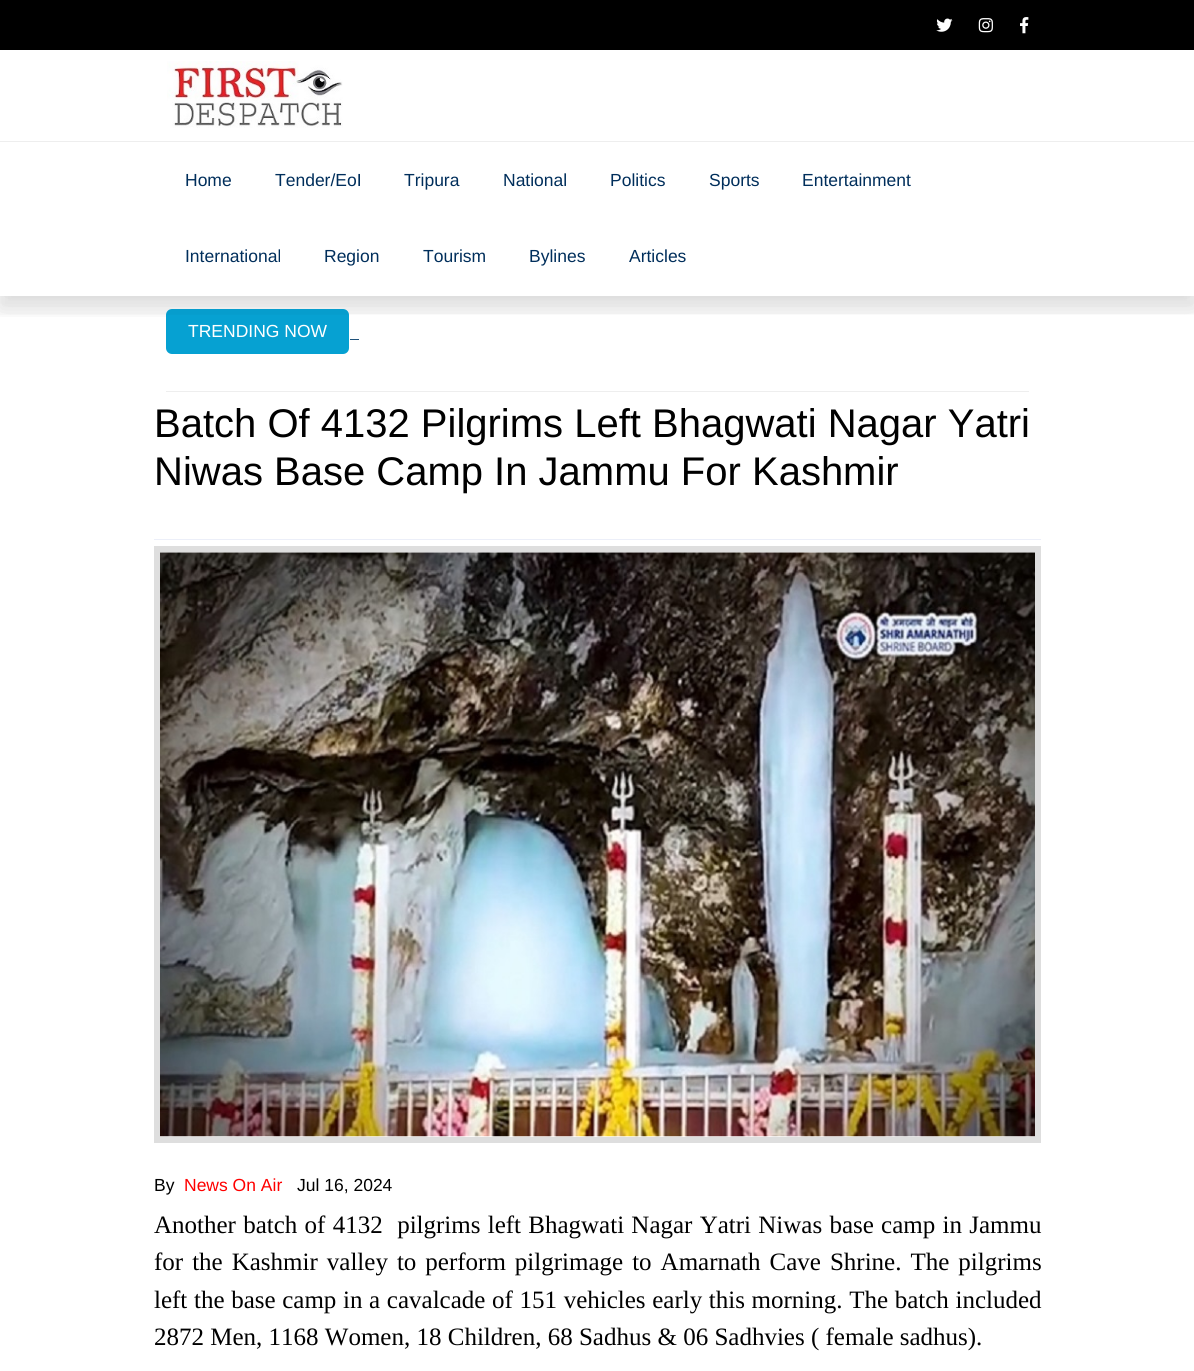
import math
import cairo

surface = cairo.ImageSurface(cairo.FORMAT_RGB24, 1194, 1371)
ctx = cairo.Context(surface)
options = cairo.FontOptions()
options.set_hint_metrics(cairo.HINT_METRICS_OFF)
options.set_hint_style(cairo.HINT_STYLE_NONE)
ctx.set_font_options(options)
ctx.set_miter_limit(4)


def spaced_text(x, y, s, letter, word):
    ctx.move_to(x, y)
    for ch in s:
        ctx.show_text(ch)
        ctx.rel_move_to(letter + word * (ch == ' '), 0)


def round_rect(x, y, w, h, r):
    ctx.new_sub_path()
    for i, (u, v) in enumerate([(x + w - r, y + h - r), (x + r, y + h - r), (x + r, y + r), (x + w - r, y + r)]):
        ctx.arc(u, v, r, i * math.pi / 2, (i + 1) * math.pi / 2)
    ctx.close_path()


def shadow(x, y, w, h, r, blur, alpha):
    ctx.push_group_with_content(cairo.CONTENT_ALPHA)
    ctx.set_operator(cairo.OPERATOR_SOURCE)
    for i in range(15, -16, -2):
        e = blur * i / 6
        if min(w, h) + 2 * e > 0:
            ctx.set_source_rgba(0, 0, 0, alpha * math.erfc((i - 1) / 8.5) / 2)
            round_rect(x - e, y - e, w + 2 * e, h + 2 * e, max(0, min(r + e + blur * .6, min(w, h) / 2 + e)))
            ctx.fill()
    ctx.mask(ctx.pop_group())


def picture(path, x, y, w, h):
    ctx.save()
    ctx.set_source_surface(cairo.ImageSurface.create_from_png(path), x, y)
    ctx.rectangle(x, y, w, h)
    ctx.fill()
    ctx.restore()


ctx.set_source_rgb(1, 1, 1)
ctx.paint()
ctx.save()
ctx.rectangle(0, 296, 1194, 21)
ctx.clip()
ctx.set_source_rgb(0.098, 0.098, 0.098)
shadow(0, 13, 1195, 296, 0, 9.5, 0.1)
ctx.restore()
ctx.set_source_rgb(0, 0, 0)
ctx.rectangle(0, 0, 1194, 50)
ctx.fill()
picture("img1.png", 936, 18, 17, 14)
picture("img2.png", 978, 18, 15, 15)
picture("img3.png", 1020, 17, 9, 17)
ctx.set_source_rgb(0.024, 0.631, 0.824)
round_rect(166, 309, 183, 45, 6)
ctx.fill()
ctx.set_source_rgb(1, 1, 1)
ctx.rectangle(349, 314, 845, 6)
ctx.fill()
ctx.set_source_rgb(0.122, 0.322, 0.482)
ctx.rectangle(350, 339, 9, 1)
ctx.fill()
ctx.save()
ctx.rectangle(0, 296, 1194, 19)
ctx.clip()
ctx.set_source_rgb(0, 0, 0)
shadow(0, 141, 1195, 155, 0, 22.5, 0.1)
ctx.restore()
ctx.set_source_rgb(1, 1, 1)
ctx.rectangle(0, 112, 1194, 29)
ctx.fill()
picture("img4.png", 167, 61, 176, 67)
ctx.set_source_rgb(0.933, 0.933, 0.933)
ctx.rectangle(0, 141, 1194, 1)
ctx.fill()
ctx.select_font_face("Liberation Sans")
ctx.set_font_size(17.5)
ctx.set_source_rgb(0, 0.18, 0.357)
ctx.move_to(185, 186)
ctx.show_text("Home")
ctx.move_to(275, 186)
ctx.show_text("Tender/EoI")
ctx.move_to(404, 186)
ctx.show_text("Tripura")
ctx.move_to(503, 186)
ctx.show_text("National")
ctx.move_to(610, 186)
ctx.show_text("Politics")
ctx.move_to(709, 186)
ctx.show_text("Sports")
ctx.move_to(802, 186)
ctx.show_text("Entertainment")
ctx.move_to(185, 262)
ctx.show_text("International")
ctx.move_to(324, 262)
ctx.show_text("Region")
ctx.move_to(423, 262)
ctx.show_text("Tourism")
ctx.move_to(529, 262)
ctx.show_text("Bylines")
ctx.move_to(629, 262)
ctx.show_text("Articles")
ctx.set_source_rgb(0.933, 0.933, 0.933)
ctx.rectangle(166, 391, 863, 1)
ctx.fill()
ctx.set_source_rgb(1, 1, 1)
ctx.move_to(188, 337)
ctx.show_text("TRENDING NOW")
ctx.set_font_size(40)
ctx.set_source_rgb(0, 0, 0)
ctx.move_to(154, 437)
ctx.show_text("Batch Of 4132 Pilgrims Left Bhagwati Nagar Yatri")
ctx.move_to(154, 485)
ctx.show_text("Niwas Base Camp In Jammu For Kashmir")
ctx.set_source_rgb(0.925, 0.937, 0.973)
ctx.rectangle(154, 539, 887, 1)
ctx.fill()
ctx.rectangle(157, 549, 881, 591)
ctx.set_source_rgb(0.871, 0.871, 0.871)
ctx.set_line_width(6)
ctx.stroke()
picture("img5.png", 160, 552, 875, 585)
ctx.set_font_size(17.5)
ctx.set_source_rgb(0, 0, 0)
ctx.move_to(154, 1191)
ctx.show_text("By")
ctx.set_source_rgb(1, 0, 0)
ctx.move_to(184, 1191)
ctx.show_text("News On Air")
ctx.set_source_rgb(0, 0, 0)
ctx.move_to(297, 1191)
ctx.show_text("Jul 16, 2024")
ctx.select_font_face("Liberation Serif")
ctx.set_font_size(25)
spaced_text(154, 1233, "Another batch of 4132  pilgrims left Bhagwati Nagar Yatri Niwas base camp in Jammu", 0, 1)
spaced_text(154, 1270, "for the Kashmir valley to perform pilgrimage to Amarnath Cave Shrine. The pilgrims", 0, 2.75)
spaced_text(154, 1308, "left the base camp in a cavalcade of 151 vehicles early this morning. The batch included", 0, 0.4)
ctx.move_to(154, 1345)
ctx.show_text("2872 Men, 1168 Women, 18 Children, 68 Sadhus & 06 Sadhvies ( female sadhus).")
surface.write_to_png("page.png")
